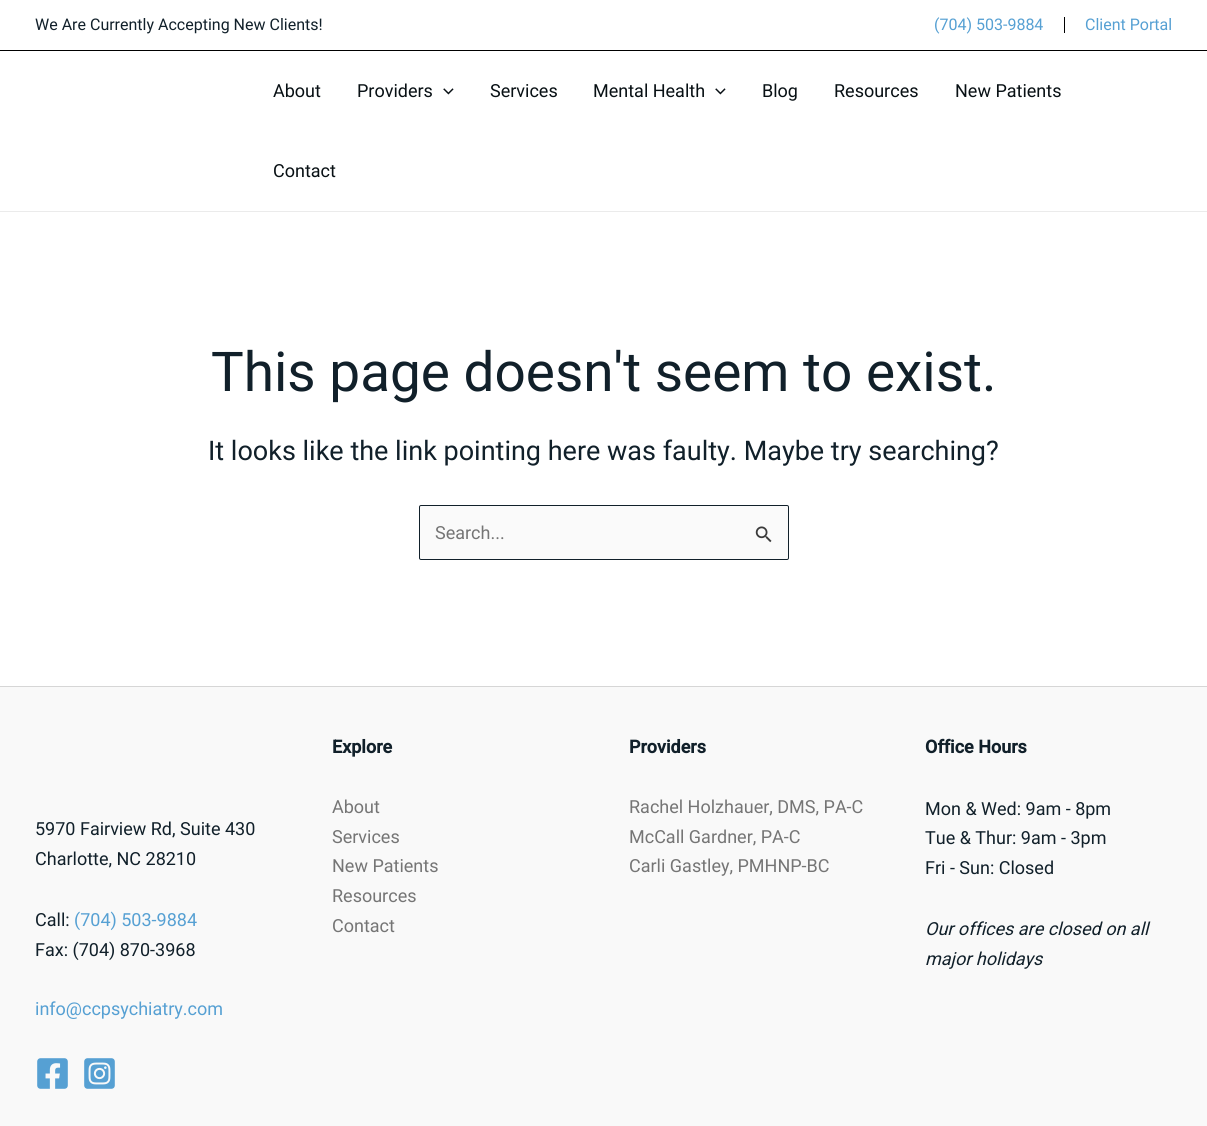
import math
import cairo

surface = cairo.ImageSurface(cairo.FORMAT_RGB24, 1207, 1126)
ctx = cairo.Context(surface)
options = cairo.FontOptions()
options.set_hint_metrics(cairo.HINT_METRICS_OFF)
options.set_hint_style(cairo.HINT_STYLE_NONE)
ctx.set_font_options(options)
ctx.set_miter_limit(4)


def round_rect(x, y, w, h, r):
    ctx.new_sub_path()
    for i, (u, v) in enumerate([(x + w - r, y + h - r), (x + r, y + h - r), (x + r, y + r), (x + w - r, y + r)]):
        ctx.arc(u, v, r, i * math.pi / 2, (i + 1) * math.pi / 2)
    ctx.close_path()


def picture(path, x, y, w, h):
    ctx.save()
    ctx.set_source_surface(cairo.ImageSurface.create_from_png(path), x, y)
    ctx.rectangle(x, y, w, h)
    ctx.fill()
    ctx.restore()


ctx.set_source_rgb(1, 1, 1)
ctx.paint()
ctx.set_source_rgb(0, 0, 0)
ctx.rectangle(0, 50, 1207, 1)
ctx.fill()
ctx.select_font_face("Roboto")
ctx.set_font_size(16)
ctx.set_source_rgb(0.067, 0.125, 0.165)
ctx.move_to(35, 30)
ctx.show_text("We Are Currently Accepting New Clients!")
ctx.set_source_rgb(0.337, 0.627, 0.827)
ctx.move_to(934, 30)
ctx.show_text("(704) 503-9884")
ctx.set_source_rgb(0, 0, 0)
ctx.rectangle(1064, 17, 1, 16)
ctx.fill()
ctx.set_source_rgb(0.337, 0.627, 0.827)
ctx.move_to(1085, 30)
ctx.show_text("Client Portal")
ctx.set_source_rgb(0.918, 0.918, 0.918)
ctx.rectangle(0, 211, 1207, 1)
ctx.fill()
ctx.set_font_size(18)
ctx.set_source_rgb(0.035, 0.063, 0.082)
ctx.move_to(273, 97)
ctx.show_text("About")
ctx.move_to(357, 97)
ctx.show_text("Providers")
picture("img1.png", 443, 88, 11, 7)
ctx.move_to(490, 97)
ctx.show_text("Services")
ctx.move_to(593, 97)
ctx.show_text("Mental Health")
picture("img1.png", 715, 88, 11, 7)
ctx.move_to(762, 97)
ctx.show_text("Blog")
ctx.move_to(834, 97)
ctx.show_text("Resources")
ctx.move_to(955, 97)
ctx.show_text("New Patients")
ctx.move_to(273, 177)
ctx.show_text("Contact")
ctx.set_font_size(54.9)
ctx.set_source_rgb(0.067, 0.125, 0.165)
ctx.move_to(211, 391)
ctx.show_text("This page doesn't seem to exist.")
ctx.set_font_size(27)
ctx.move_to(208, 460)
ctx.show_text("It looks like the link pointing here was faulty. Maybe try searching?")
ctx.set_source_rgb(0.98, 0.98, 0.98)
round_rect(419.5, 505.5, 369, 54, 1.5)
ctx.fill_preserve()
ctx.set_source_rgb(0.067, 0.125, 0.165)
ctx.set_line_width(1)
ctx.stroke()
ctx.set_font_size(18)
ctx.set_source_rgb(0.459, 0.459, 0.459)
ctx.move_to(435, 539)
ctx.show_text("Search...")
picture("img2.png", 755, 526, 17, 17)
ctx.set_source_rgb(0.976, 0.976, 0.976)
ctx.rectangle(0, 687, 1207, 439)
ctx.fill()
ctx.set_source_rgb(0.839, 0.839, 0.839)
ctx.rectangle(0, 686, 1207, 1)
ctx.fill()
ctx.set_source_rgb(0.067, 0.125, 0.165)
ctx.move_to(35, 835)
ctx.show_text("5970 Fairview Rd, Suite 430")
ctx.move_to(35, 865)
ctx.show_text("Charlotte, NC 28210")
ctx.move_to(35, 926)
ctx.show_text("Call:")
ctx.set_source_rgb(0.337, 0.627, 0.827)
ctx.move_to(74, 926)
ctx.show_text("(704) 503-9884")
ctx.set_source_rgb(0.067, 0.125, 0.165)
ctx.move_to(35, 956)
ctx.show_text("Fax: (704) 870-3968")
ctx.set_source_rgb(0.337, 0.627, 0.827)
ctx.move_to(35, 1015)
ctx.show_text("info@ccpsychiatry.com")
picture("img3.png", 37, 1058, 31, 31)
picture("img4.png", 84, 1058, 31, 31)
ctx.select_font_face("Roboto", cairo.FONT_SLANT_NORMAL, cairo.FONT_WEIGHT_BOLD)
ctx.set_source_rgb(0.067, 0.125, 0.165)
ctx.move_to(332, 753)
ctx.show_text("Explore")
ctx.select_font_face("Roboto")
ctx.set_source_rgb(0.459, 0.459, 0.459)
ctx.move_to(332, 813)
ctx.show_text("About")
ctx.move_to(332, 843)
ctx.show_text("Services")
ctx.move_to(332, 872)
ctx.show_text("New Patients")
ctx.move_to(332, 902)
ctx.show_text("Resources")
ctx.move_to(332, 932)
ctx.show_text("Contact")
ctx.select_font_face("Roboto", cairo.FONT_SLANT_NORMAL, cairo.FONT_WEIGHT_BOLD)
ctx.set_source_rgb(0.067, 0.125, 0.165)
ctx.move_to(629, 753)
ctx.show_text("Providers")
ctx.select_font_face("Roboto")
ctx.set_source_rgb(0.459, 0.459, 0.459)
ctx.move_to(629, 813)
ctx.show_text("Rachel Holzhauer, DMS, PA-C")
ctx.move_to(629, 843)
ctx.show_text("McCall Gardner, PA-C")
ctx.move_to(629, 872)
ctx.show_text("Carli Gastley, PMHNP-BC")
ctx.select_font_face("Roboto", cairo.FONT_SLANT_NORMAL, cairo.FONT_WEIGHT_BOLD)
ctx.set_source_rgb(0.067, 0.125, 0.165)
ctx.move_to(925, 753)
ctx.show_text("Office Hours")
ctx.select_font_face("Roboto")
ctx.move_to(925, 815)
ctx.show_text("Mon & Wed: 9am - 8pm")
ctx.move_to(925, 844)
ctx.show_text("Tue & Thur: 9am - 3pm")
ctx.move_to(925, 874)
ctx.show_text("Fri - Sun: Closed")
ctx.select_font_face("Roboto", cairo.FONT_SLANT_ITALIC)
ctx.move_to(925, 935)
ctx.show_text("Our offices are closed on all")
ctx.move_to(925, 965)
ctx.show_text("major holidays")
surface.write_to_png("page.png")
